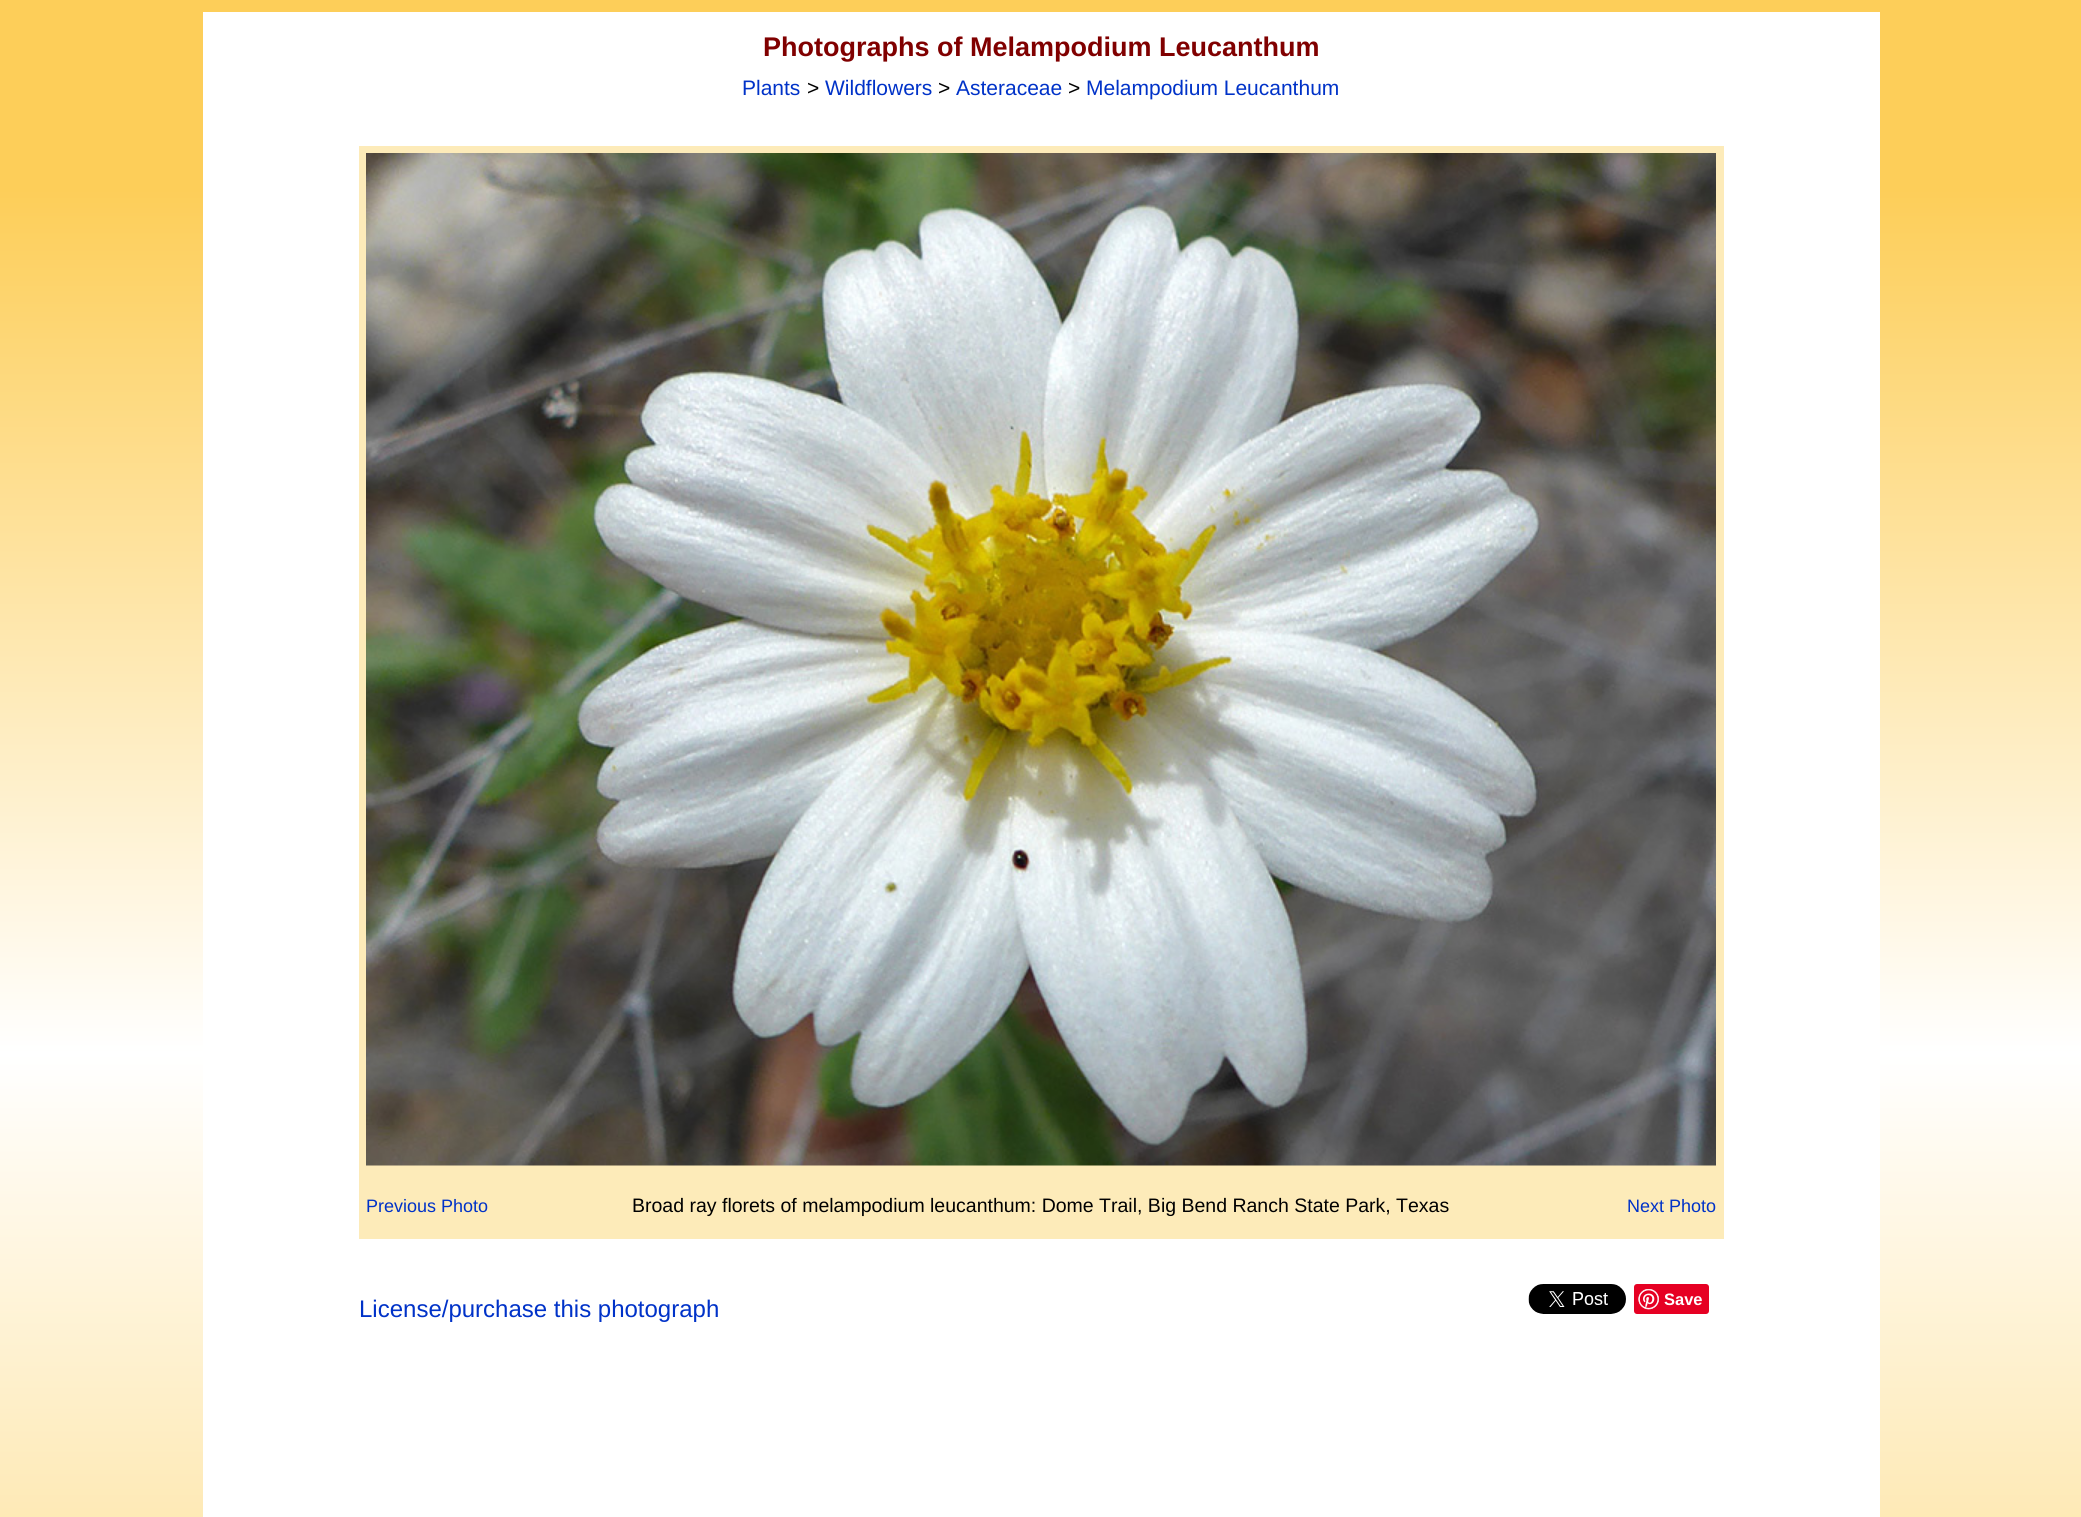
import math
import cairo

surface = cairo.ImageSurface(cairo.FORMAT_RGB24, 2081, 1517)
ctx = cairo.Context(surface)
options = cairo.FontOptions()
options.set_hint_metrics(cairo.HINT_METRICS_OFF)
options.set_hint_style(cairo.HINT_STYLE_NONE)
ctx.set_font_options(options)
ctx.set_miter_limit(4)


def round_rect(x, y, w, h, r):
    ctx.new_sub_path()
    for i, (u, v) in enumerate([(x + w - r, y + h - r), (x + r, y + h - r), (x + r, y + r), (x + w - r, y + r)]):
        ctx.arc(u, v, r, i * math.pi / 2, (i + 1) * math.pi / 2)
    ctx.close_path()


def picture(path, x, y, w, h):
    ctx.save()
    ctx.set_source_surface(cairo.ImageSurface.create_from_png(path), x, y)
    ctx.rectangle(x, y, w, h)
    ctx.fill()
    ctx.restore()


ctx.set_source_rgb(1, 1, 1)
ctx.paint()
gradient = cairo.LinearGradient(1041, 0, 1041, 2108)
gradient.add_color_stop_rgba(0.09, 0.992, 0.808, 0.349, 1)
gradient.add_color_stop_rgba(0.5, 1, 1, 1, 1)
gradient.add_color_stop_rgba(1, 0.992, 0.808, 0.349, 1)
ctx.set_source(gradient)
ctx.rectangle(0, 0, 2081, 1517)
ctx.fill()
ctx.set_source_rgb(1, 1, 1)
ctx.rectangle(203, 12, 1677, 1505)
ctx.fill()
ctx.select_font_face("Liberation Sans", cairo.FONT_SLANT_NORMAL, cairo.FONT_WEIGHT_BOLD)
ctx.set_font_size(27)
ctx.set_source_rgb(0.502, 0, 0)
ctx.move_to(763, 56)
ctx.show_text("Photographs of Melampodium Leucanthum")
ctx.select_font_face("Liberation Sans")
ctx.set_font_size(21)
ctx.set_source_rgb(0, 0.196, 0.784)
ctx.move_to(742, 95)
ctx.show_text("Plants")
ctx.set_source_rgb(0, 0, 0)
ctx.move_to(807, 95)
ctx.show_text(">")
ctx.set_source_rgb(0, 0.196, 0.784)
ctx.move_to(825, 95)
ctx.show_text("Wildflowers")
ctx.set_source_rgb(0, 0, 0)
ctx.move_to(938, 95)
ctx.show_text(">")
ctx.set_source_rgb(0, 0.196, 0.784)
ctx.move_to(956, 95)
ctx.show_text("Asteraceae")
ctx.set_source_rgb(0, 0, 0)
ctx.move_to(1068, 95)
ctx.show_text(">")
ctx.set_source_rgb(0, 0.196, 0.784)
ctx.move_to(1086, 95)
ctx.show_text("Melampodium Leucanthum")
ctx.set_source_rgb(0.992, 0.918, 0.725)
ctx.rectangle(359, 146, 1365, 1093)
ctx.fill()
picture("img1.png", 366, 153, 1350, 1013)
ctx.set_font_size(18)
ctx.set_source_rgb(0, 0.196, 0.784)
ctx.move_to(366, 1212)
ctx.show_text("Previous Photo")
ctx.set_font_size(19.5)
ctx.set_source_rgb(0, 0, 0)
ctx.move_to(632, 1212)
ctx.show_text("Broad ray florets of melampodium leucanthum: Dome Trail, Big Bend Ranch State Park, Texas")
ctx.set_font_size(18)
ctx.set_source_rgb(0, 0.196, 0.784)
ctx.move_to(1627, 1212)
ctx.show_text("Next Photo")
ctx.set_font_size(24)
ctx.move_to(359, 1317)
ctx.show_text("License/purchase this photograph")
picture("img2.png", 1528, 1284, 98, 30)
ctx.set_source_rgb(0.902, 0, 0.137)
round_rect(1634, 1284, 75, 30, 3)
ctx.fill()
picture("img3.png", 1638, 1289, 21, 21)
ctx.select_font_face("Liberation Sans", cairo.FONT_SLANT_NORMAL, cairo.FONT_WEIGHT_BOLD)
ctx.set_font_size(16.5)
ctx.set_source_rgb(1, 1, 1)
ctx.move_to(1664, 1305)
ctx.show_text("Save")
surface.write_to_png("page.png")
